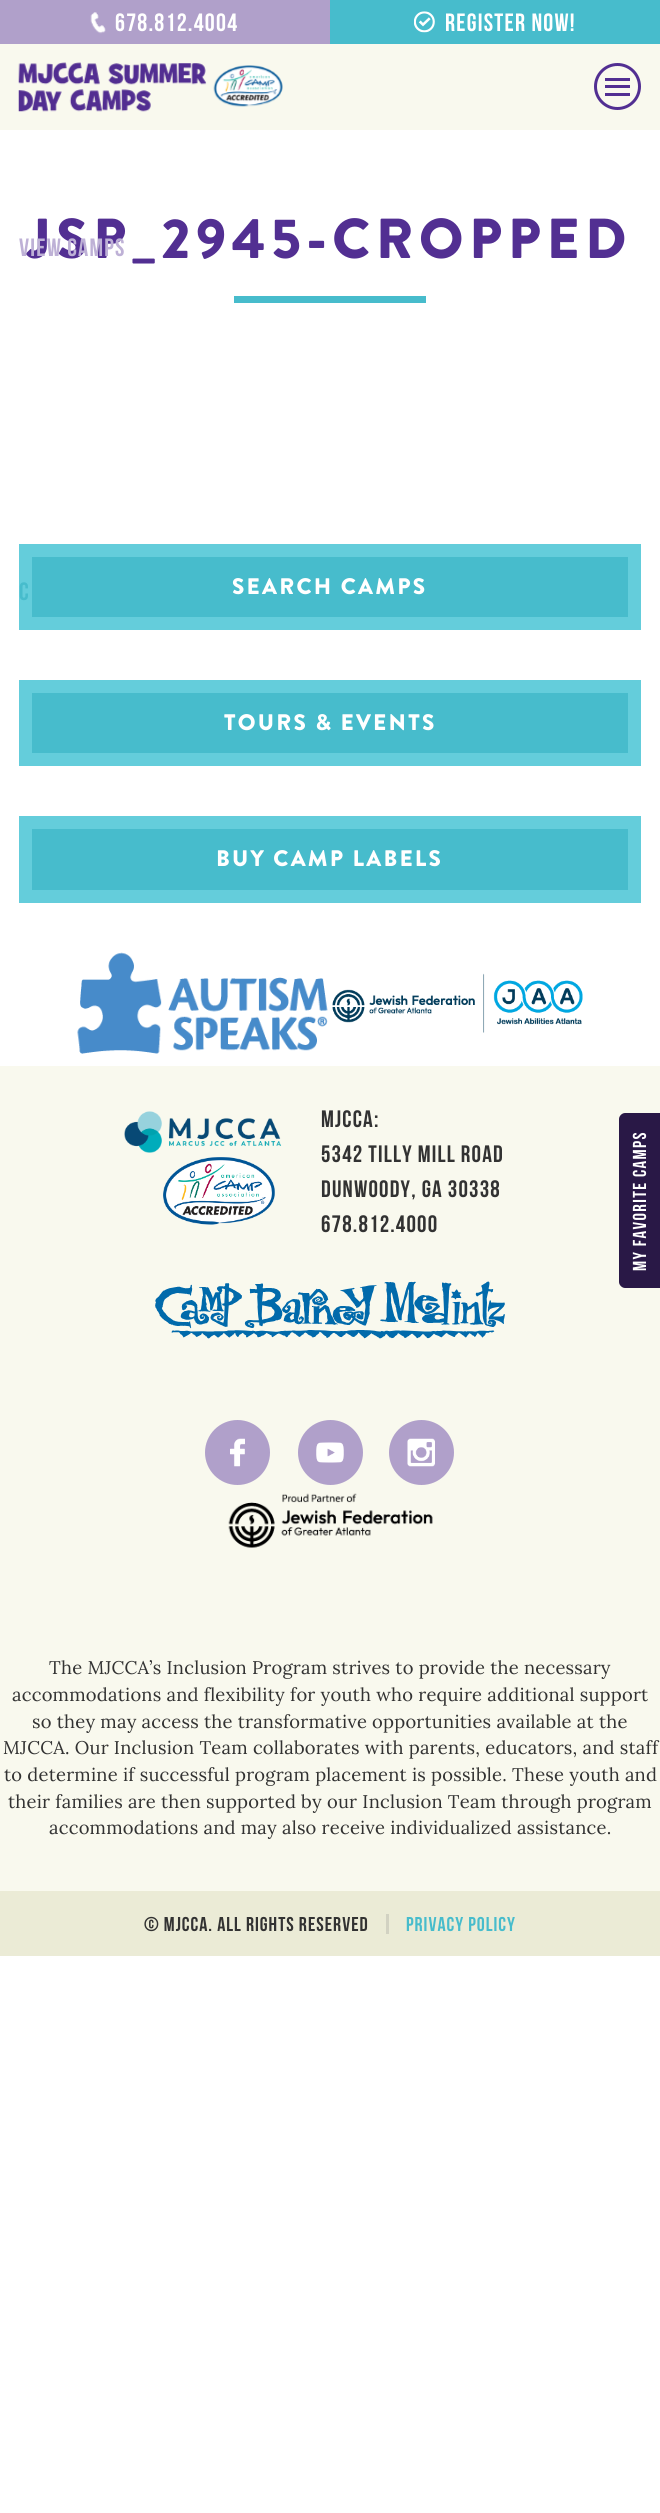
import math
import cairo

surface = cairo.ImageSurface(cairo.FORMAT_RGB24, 660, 2513)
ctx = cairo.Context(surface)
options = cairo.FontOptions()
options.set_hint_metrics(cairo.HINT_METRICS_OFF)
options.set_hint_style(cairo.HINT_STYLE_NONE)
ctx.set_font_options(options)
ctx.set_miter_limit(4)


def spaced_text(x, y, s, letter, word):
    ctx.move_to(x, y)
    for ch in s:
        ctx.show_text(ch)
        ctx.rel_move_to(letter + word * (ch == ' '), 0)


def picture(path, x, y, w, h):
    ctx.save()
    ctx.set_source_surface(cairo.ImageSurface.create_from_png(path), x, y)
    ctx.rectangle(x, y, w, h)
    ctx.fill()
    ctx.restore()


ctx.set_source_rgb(1, 1, 1)
ctx.paint()
ctx.set_source_rgb(0.69, 0.627, 0.792)
ctx.rectangle(0, 0, 330, 44)
ctx.fill()
picture("img1.png", 90, 12, 16, 22)
ctx.select_font_face("Bebas Neue")
ctx.set_font_size(25)
ctx.set_source_rgb(1, 1, 1)
spaced_text(115, 31, "678.812.4004", 1.25, 0)
ctx.set_source_rgb(0.278, 0.737, 0.8)
ctx.rectangle(330, 0, 330, 44)
ctx.fill()
picture("img2.png", 414, 11, 21, 22)
ctx.set_source_rgb(1, 1, 1)
spaced_text(445, 31, "Register Now!", 1.25, 0)
ctx.set_source_rgb(0.976, 0.976, 0.933)
ctx.rectangle(0, 44, 660, 86)
ctx.fill()
picture("img3.png", 18, 62, 189, 50)
picture("img4.png", 213, 65, 70, 42)
ctx.arc(617.5, 86.5, 22, 0, 2 * math.pi)
ctx.set_source_rgb(0.322, 0.184, 0.573)
ctx.set_line_width(3)
ctx.stroke()
ctx.rectangle(605, 85, 25, 3)
ctx.fill()
ctx.rectangle(605, 78, 25, 3)
ctx.fill()
ctx.rectangle(605, 93, 25, 3)
ctx.fill()
ctx.select_font_face("Brandon Grotesque Black")
ctx.set_font_size(56.25)
spaced_text(27, 258, "JSP_2945-CROPPED", 5.6, 0)
ctx.select_font_face("Bebas Neue")
ctx.set_font_size(25)
ctx.set_source_rgb(0.745, 0.694, 0.839)
spaced_text(19, 256, "View Camps", 1.25, 0)
ctx.set_source_rgb(0.278, 0.737, 0.8)
ctx.rectangle(25.5, 550.5, 609, 73)
ctx.fill_preserve()
ctx.set_source_rgb(0.392, 0.804, 0.859)
ctx.set_line_width(13)
ctx.stroke()
ctx.set_source_rgb(0.278, 0.737, 0.8)
spaced_text(19, 600, "C", 1.25, 0)
ctx.rectangle(234, 296, 192, 7)
ctx.fill()
ctx.select_font_face("Brandon Grotesque Black")
ctx.set_font_size(22.5)
ctx.set_source_rgb(1, 1, 1)
spaced_text(232, 594, "SEARCH CAMPS", 2.25, 0)
ctx.set_source_rgb(0.278, 0.737, 0.8)
ctx.rectangle(25.5, 686.5, 609, 73)
ctx.fill_preserve()
ctx.set_source_rgb(0.392, 0.804, 0.859)
ctx.stroke()
ctx.set_source_rgb(1, 1, 1)
spaced_text(224, 730, "TOURS & EVENTS", 2.25, 0)
ctx.set_source_rgb(0.278, 0.737, 0.8)
ctx.rectangle(25.5, 822.5, 609, 74)
ctx.fill_preserve()
ctx.set_source_rgb(0.392, 0.804, 0.859)
ctx.stroke()
ctx.set_source_rgb(1, 1, 1)
spaced_text(216, 866, "BUY CAMP LABELS", 2.25, 0)
picture("img5.png", 77, 952, 251, 102)
picture("img6.png", 332, 973, 251, 60)
ctx.set_source_rgb(0.976, 0.976, 0.933)
ctx.rectangle(0, 1066, 660, 825)
ctx.fill()
picture("img7.png", 124, 1111, 158, 42)
picture("img8.png", 163, 1157, 112, 68)
ctx.select_font_face("Bebas Neue")
ctx.set_font_size(23.75)
ctx.set_source_rgb(0.196, 0.196, 0.196)
spaced_text(321, 1127, "MJCCA:", 1.2, 0)
spaced_text(321, 1162, "5342 Tilly Mill Road", 1.2, 0)
spaced_text(321, 1197, "Dunwoody, GA 30338", 1.2, 0)
spaced_text(321, 1232, "678.812.4000", 1.2, 0)
picture("img9.png", 155, 1281, 350, 58)
ctx.set_source_rgb(0.69, 0.627, 0.792)
ctx.arc(237.5, 1452.5, 32.5, 0, 2 * math.pi)
ctx.fill()
picture("img10.png", 230, 1438, 15, 29)
ctx.arc(330.5, 1452.5, 32.5, 0, 2 * math.pi)
ctx.fill()
picture("img11.png", 316, 1442, 28, 21)
ctx.arc(421.5, 1452.5, 32.5, 0, 2 * math.pi)
ctx.fill()
picture("img12.png", 407, 1438, 28, 29)
picture("img13.png", 228, 1493, 205, 55)
ctx.select_font_face("Lora")
ctx.set_font_size(18.35)
ctx.set_source_rgb(0.196, 0.196, 0.196)
spaced_text(49, 1674, "The MJCCA’s Inclusion Program strives to provide the necessary", 0.22, 0)
spaced_text(12, 1701, "accommodations and flexibility for youth who require additional support", 0.22, 0)
spaced_text(32, 1728, "so they may access the transformative opportunities available at the", 0.22, 0)
spaced_text(3, 1754, "MJCCA. Our Inclusion Team collaborates with parents, educators, and staff", 0.22, 0)
spaced_text(4, 1781, "to determine if successful program placement is possible. These youth and", 0.22, 0)
spaced_text(8, 1808, "their families are then supported by our Inclusion Team through program", 0.22, 0)
spaced_text(49, 1834, "accommodations and may also receive individualized assistance.", 0.22, 0)
ctx.set_source_rgb(0.918, 0.918, 0.839)
ctx.rectangle(0, 1891, 660, 65)
ctx.fill()
ctx.select_font_face("Bebas Neue")
ctx.set_font_size(20)
ctx.set_source_rgb(0.196, 0.196, 0.196)
spaced_text(144, 1931, "© MJCCA. all rights reserved", 1, 0)
ctx.set_source_rgb(0.824, 0.824, 0.761)
ctx.rectangle(386, 1914, 3, 20)
ctx.fill()
ctx.set_source_rgb(0.278, 0.737, 0.8)
spaced_text(406, 1931, "Privacy policy", 1, 0)
ctx.set_source_rgb(0.161, 0.094, 0.275)
ctx.new_path()
ctx.move_to(619, 1282)
ctx.line_to(619, 1119)
ctx.curve_to(619, 1116, 622, 1113, 625, 1113)
ctx.line_to(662, 1113)
ctx.line_to(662, 1288)
ctx.line_to(625, 1288)
ctx.curve_to(622, 1288, 619, 1285, 619, 1282)
ctx.close_path()
ctx.fill()
ctx.set_font_size(18.75)
ctx.set_source_rgb(1, 1, 1)
ctx.save()
ctx.translate(646, 1271)
ctx.rotate(-90 * math.pi / 180)
spaced_text(0, 0, "MY FAVORITE CAMPS", 1.4, 0)
ctx.restore()
surface.write_to_png("page.png")
